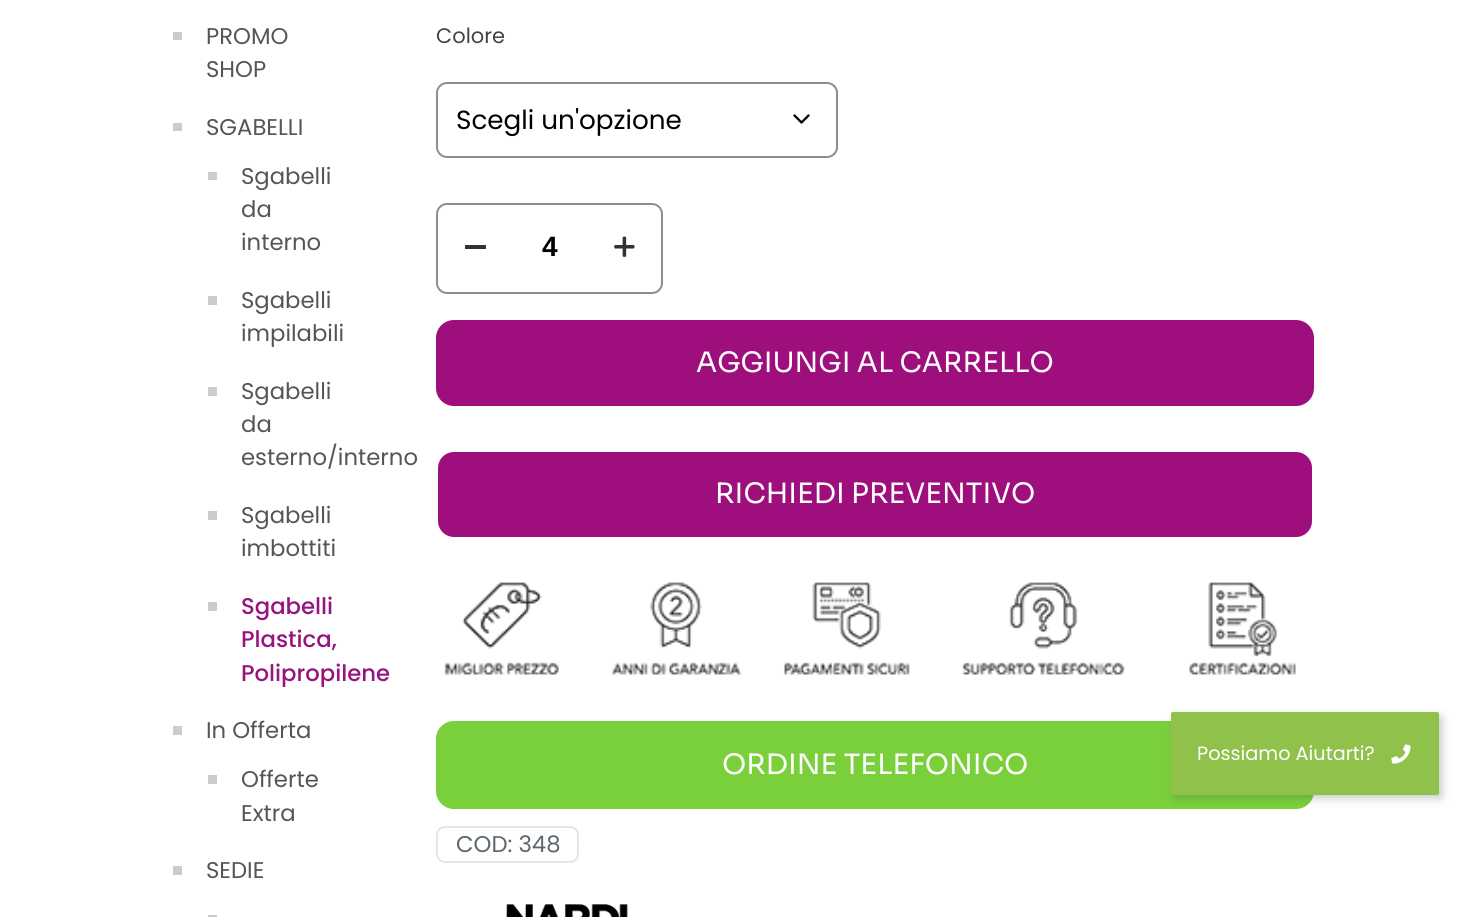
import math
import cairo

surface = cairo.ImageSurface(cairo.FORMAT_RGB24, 1464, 917)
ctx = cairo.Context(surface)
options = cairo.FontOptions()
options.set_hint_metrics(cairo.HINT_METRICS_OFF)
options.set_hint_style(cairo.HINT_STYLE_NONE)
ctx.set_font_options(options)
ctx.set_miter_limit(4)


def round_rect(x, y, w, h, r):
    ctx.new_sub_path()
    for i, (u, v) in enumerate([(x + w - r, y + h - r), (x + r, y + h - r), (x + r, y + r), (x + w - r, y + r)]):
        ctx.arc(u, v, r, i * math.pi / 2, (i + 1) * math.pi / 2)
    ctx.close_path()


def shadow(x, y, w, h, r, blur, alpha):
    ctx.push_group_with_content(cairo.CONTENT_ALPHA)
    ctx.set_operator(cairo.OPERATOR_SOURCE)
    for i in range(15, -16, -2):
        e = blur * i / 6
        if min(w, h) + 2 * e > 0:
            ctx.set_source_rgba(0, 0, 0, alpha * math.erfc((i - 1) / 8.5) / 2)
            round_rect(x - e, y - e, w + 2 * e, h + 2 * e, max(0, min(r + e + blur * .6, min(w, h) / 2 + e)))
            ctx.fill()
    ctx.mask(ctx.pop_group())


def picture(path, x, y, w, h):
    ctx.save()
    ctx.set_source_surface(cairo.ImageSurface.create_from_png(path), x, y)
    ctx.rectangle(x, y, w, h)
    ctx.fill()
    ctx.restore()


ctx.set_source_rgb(1, 1, 1)
ctx.paint()
ctx.set_source_rgb(0.8, 0.8, 0.8)
ctx.rectangle(173, 32, 9, 8)
ctx.fill()
ctx.select_font_face("Poppins")
ctx.set_font_size(22.75)
ctx.set_source_rgb(0.333, 0.333, 0.333)
ctx.move_to(206, 44)
ctx.show_text("PROMO")
ctx.move_to(206, 77)
ctx.show_text("SHOP")
ctx.set_source_rgb(0.8, 0.8, 0.8)
ctx.rectangle(173, 123, 9, 8)
ctx.fill()
ctx.set_source_rgb(0.333, 0.333, 0.333)
ctx.move_to(206, 135)
ctx.show_text("SGABELLI")
ctx.set_source_rgb(0.8, 0.8, 0.8)
ctx.rectangle(208, 172, 9, 8)
ctx.fill()
ctx.set_source_rgb(0.333, 0.333, 0.333)
ctx.move_to(241, 184)
ctx.show_text("Sgabelli")
ctx.move_to(241, 217)
ctx.show_text("da")
ctx.move_to(241, 250)
ctx.show_text("interno")
ctx.set_source_rgb(0.8, 0.8, 0.8)
ctx.rectangle(208, 296, 9, 9)
ctx.fill()
ctx.set_source_rgb(0.333, 0.333, 0.333)
ctx.move_to(241, 308)
ctx.show_text("Sgabelli")
ctx.move_to(241, 341)
ctx.show_text("impilabili")
ctx.set_source_rgb(0.8, 0.8, 0.8)
ctx.rectangle(208, 387, 9, 9)
ctx.fill()
ctx.set_source_rgb(0.333, 0.333, 0.333)
ctx.move_to(241, 399)
ctx.show_text("Sgabelli")
ctx.move_to(241, 432)
ctx.show_text("da")
ctx.move_to(241, 465)
ctx.show_text("esterno/interno")
ctx.set_source_rgb(0.8, 0.8, 0.8)
ctx.rectangle(208, 511, 9, 9)
ctx.fill()
ctx.set_source_rgb(0.333, 0.333, 0.333)
ctx.move_to(241, 523)
ctx.show_text("Sgabelli")
ctx.move_to(241, 556)
ctx.show_text("imbottiti")
ctx.set_source_rgb(0.8, 0.8, 0.8)
ctx.rectangle(208, 602, 9, 9)
ctx.fill()
ctx.select_font_face("Poppins Medium")
ctx.set_source_rgb(0.592, 0.082, 0.494)
ctx.move_to(241, 614)
ctx.show_text("Sgabelli")
ctx.move_to(241, 647)
ctx.show_text("Plastica,")
ctx.move_to(241, 681)
ctx.show_text("Polipropilene")
ctx.set_source_rgb(0.8, 0.8, 0.8)
ctx.rectangle(173, 726, 9, 9)
ctx.fill()
ctx.select_font_face("Poppins")
ctx.set_source_rgb(0.333, 0.333, 0.333)
ctx.move_to(206, 738)
ctx.show_text("In Offerta")
ctx.set_source_rgb(0.8, 0.8, 0.8)
ctx.rectangle(208, 775, 9, 9)
ctx.fill()
ctx.set_source_rgb(0.333, 0.333, 0.333)
ctx.move_to(241, 787)
ctx.show_text("Offerte")
ctx.move_to(241, 821)
ctx.show_text("Extra")
ctx.set_source_rgb(0.8, 0.8, 0.8)
ctx.rectangle(173, 866, 9, 9)
ctx.fill()
ctx.set_source_rgb(0.333, 0.333, 0.333)
ctx.move_to(206, 878)
ctx.show_text("SEDIE")
ctx.set_source_rgb(0.8, 0.8, 0.8)
ctx.rectangle(208, 915, 9, 2)
ctx.fill()
ctx.set_font_size(21)
ctx.set_source_rgb(0.267, 0.267, 0.267)
ctx.move_to(436, 43)
ctx.show_text("Colore")
ctx.new_path()
ctx.move_to(794.5, 115.5)
ctx.line_to(801.5, 122.5)
ctx.line_to(808.5, 115.5)
ctx.set_source_rgb(0, 0, 0)
ctx.set_line_width(2.3)
ctx.set_line_cap(cairo.LINE_CAP_ROUND)
ctx.set_line_join(cairo.LINE_JOIN_ROUND)
ctx.stroke()
round_rect(437, 83, 400, 74, 10)
ctx.set_source_rgb(0.557, 0.557, 0.557)
ctx.set_line_width(2)
ctx.set_line_cap(cairo.LINE_CAP_BUTT)
ctx.set_line_join(cairo.LINE_JOIN_MITER)
ctx.stroke()
ctx.set_font_size(26.25)
ctx.set_source_rgb(0, 0, 0)
ctx.move_to(456, 129)
ctx.show_text("Scegli un'opzione")
round_rect(437, 204, 225, 89, 10)
ctx.set_source_rgb(0.557, 0.557, 0.557)
ctx.stroke()
ctx.set_source_rgb(0.2, 0.2, 0.2)
ctx.rectangle(465, 245, 21, 4)
ctx.fill()
ctx.select_font_face("Liberation Sans", cairo.FONT_SLANT_NORMAL, cairo.FONT_WEIGHT_BOLD)
ctx.set_font_size(28)
ctx.set_source_rgb(0, 0, 0)
ctx.move_to(542, 256)
ctx.show_text("4")
picture("img1.png", 614, 236, 21, 21)
ctx.set_source_rgb(0.62, 0.055, 0.49)
round_rect(436, 320, 878, 86, 18)
ctx.fill()
ctx.select_font_face("Sora")
ctx.set_source_rgb(1, 1, 1)
ctx.move_to(696, 372)
ctx.show_text("AGGIUNGI AL CARRELLO")
ctx.set_source_rgb(0.62, 0.055, 0.49)
round_rect(437, 451, 876, 87, 17)
ctx.fill_preserve()
ctx.set_source_rgb(1, 1, 1)
ctx.stroke()
ctx.move_to(715, 503)
ctx.show_text("RICHIEDI PREVENTIVO")
picture("img2.png", 444, 582, 852, 93)
ctx.set_source_rgb(0.478, 0.816, 0.227)
round_rect(436, 721, 878, 88, 18)
ctx.fill()
ctx.set_source_rgb(1, 1, 1)
ctx.move_to(722, 774)
ctx.show_text("ORDINE TELEFONICO")
round_rect(437, 827, 141, 35, 8)
ctx.set_source_rgb(0.902, 0.902, 0.902)
ctx.stroke()
ctx.select_font_face("Poppins")
ctx.set_font_size(22.75)
ctx.set_source_rgb(0.361, 0.404, 0.427)
ctx.move_to(456, 852)
ctx.show_text("COD: 348")
picture("img3.png", 506, 904, 122, 13)
ctx.set_source_rgb(0.298, 0.298, 0.298)
shadow(1174, 716, 268, 82, 2, 4.5, 0.3)
ctx.set_source_rgb(0.565, 0.761, 0.294)
round_rect(1171, 712, 268, 83, 2)
ctx.fill()
ctx.set_font_size(19.25)
ctx.set_source_rgb(1, 1, 1)
ctx.move_to(1197, 760)
ctx.show_text("Possiamo Aiutarti?")
picture("img4.png", 1391, 744, 20, 20)
surface.write_to_png("page.png")
